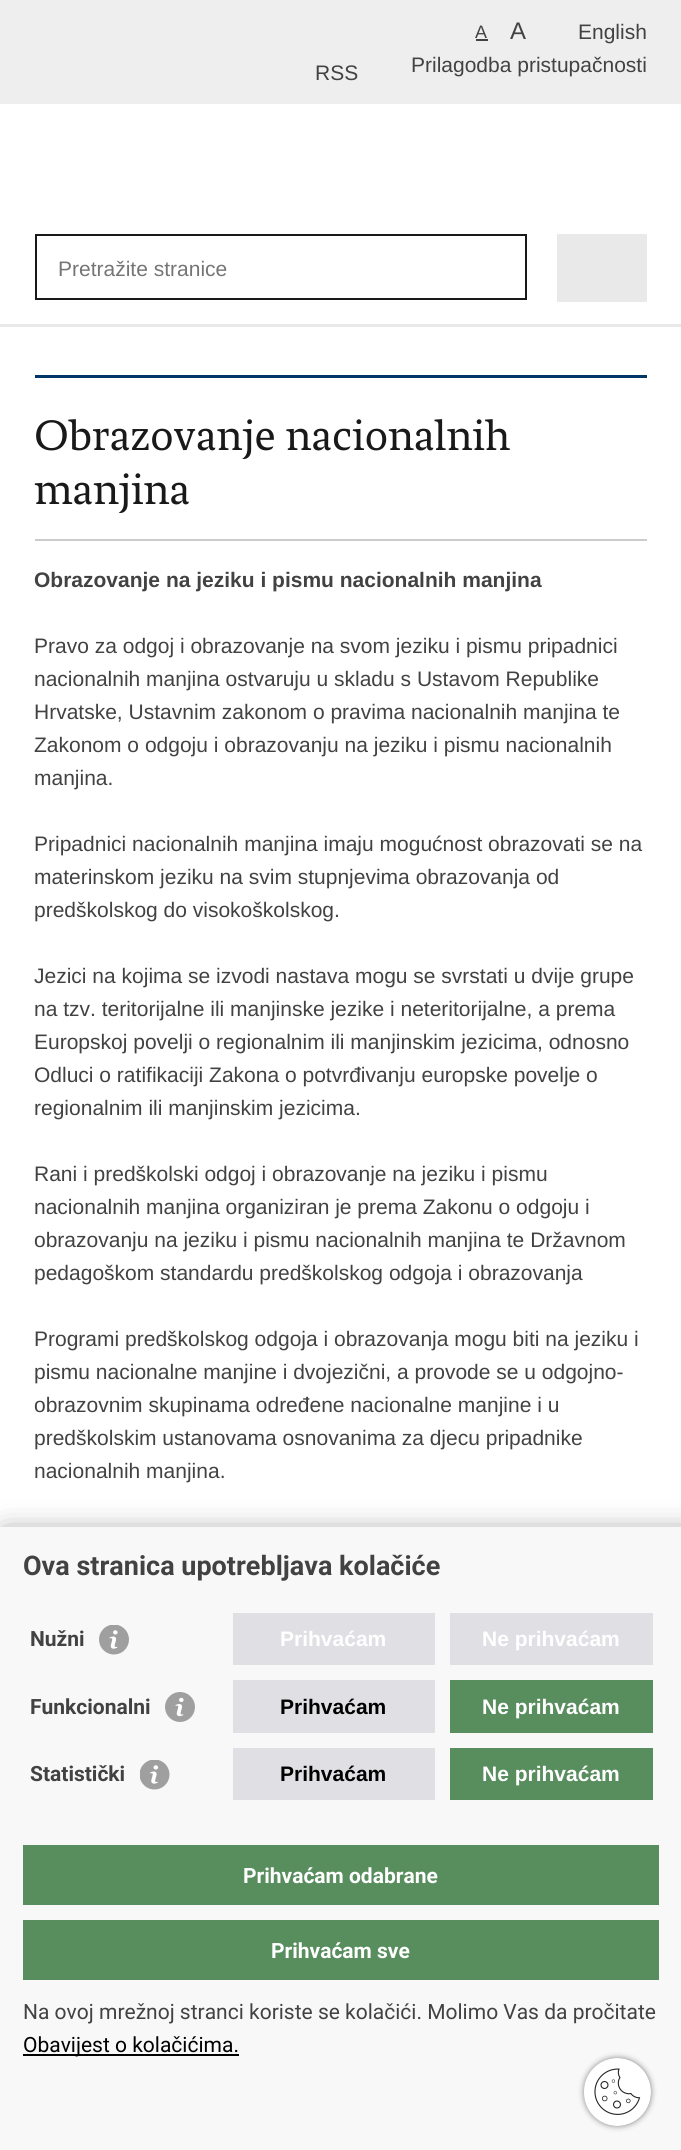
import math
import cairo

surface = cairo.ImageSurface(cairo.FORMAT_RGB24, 681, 2150)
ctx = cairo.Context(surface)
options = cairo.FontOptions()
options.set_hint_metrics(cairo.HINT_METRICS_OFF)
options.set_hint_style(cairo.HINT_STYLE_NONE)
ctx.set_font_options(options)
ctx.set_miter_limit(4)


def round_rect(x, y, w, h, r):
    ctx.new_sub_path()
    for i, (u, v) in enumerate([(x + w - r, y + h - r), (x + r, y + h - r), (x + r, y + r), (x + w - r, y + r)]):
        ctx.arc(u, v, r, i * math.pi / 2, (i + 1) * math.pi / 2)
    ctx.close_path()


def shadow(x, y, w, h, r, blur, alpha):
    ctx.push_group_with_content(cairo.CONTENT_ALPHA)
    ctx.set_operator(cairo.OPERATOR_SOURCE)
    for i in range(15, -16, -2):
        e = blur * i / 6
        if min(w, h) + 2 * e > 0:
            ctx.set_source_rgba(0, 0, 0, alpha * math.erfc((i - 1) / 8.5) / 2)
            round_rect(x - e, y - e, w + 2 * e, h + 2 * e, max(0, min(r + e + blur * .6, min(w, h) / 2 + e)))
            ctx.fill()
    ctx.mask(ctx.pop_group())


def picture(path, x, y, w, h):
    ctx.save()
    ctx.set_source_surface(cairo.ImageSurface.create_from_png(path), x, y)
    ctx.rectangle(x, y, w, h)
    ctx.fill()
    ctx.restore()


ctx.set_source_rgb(1, 1, 1)
ctx.paint()
ctx.set_source_rgb(0.914, 0.914, 0.914)
ctx.rectangle(0, 324, 681, 3)
ctx.fill()
ctx.set_source_rgb(0.933, 0.933, 0.933)
ctx.rectangle(0, 0, 681, 104)
ctx.fill()
ctx.select_font_face("Liberation Sans")
ctx.set_font_size(18)
ctx.set_source_rgb(0.259, 0.259, 0.259)
ctx.move_to(475, 38)
ctx.show_text("A")
ctx.rectangle(476, 39, 12, 2)
ctx.fill()
ctx.set_font_size(24)
ctx.move_to(510, 39)
ctx.show_text("A")
ctx.set_font_size(21)
ctx.move_to(578, 39)
ctx.show_text("English")
ctx.move_to(315, 80)
ctx.show_text("RSS")
ctx.move_to(411, 72)
ctx.show_text("Prilagodba pristupačnosti")
ctx.rectangle(36, 235, 490, 64)
ctx.set_source_rgb(0.098, 0.098, 0.098)
ctx.stroke()
ctx.set_source_rgb(0.459, 0.459, 0.459)
ctx.move_to(58, 276)
ctx.show_text("Pretražite stranice")
ctx.set_source_rgb(0.914, 0.914, 0.914)
ctx.rectangle(557, 234, 90, 68)
ctx.fill()
ctx.set_source_rgb(0, 0.208, 0.404)
ctx.rectangle(35, 375, 612, 3)
ctx.fill()
ctx.select_font_face("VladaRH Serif")
ctx.set_font_size(45)
ctx.set_source_rgb(0.098, 0.098, 0.098)
ctx.move_to(34, 450)
ctx.show_text("Obrazovanje nacionalnih")
ctx.move_to(34, 504)
ctx.show_text("manjina")
ctx.set_source_rgb(0.8, 0.8, 0.8)
ctx.rectangle(35, 539, 612, 2)
ctx.fill()
ctx.select_font_face("Liberation Sans", cairo.FONT_SLANT_NORMAL, cairo.FONT_WEIGHT_BOLD)
ctx.set_font_size(21)
ctx.set_source_rgb(0.259, 0.259, 0.259)
ctx.move_to(34, 587)
ctx.show_text("Obrazovanje na jeziku i pismu nacionalnih manjina")
ctx.select_font_face("Liberation Sans")
ctx.move_to(34, 653)
ctx.show_text("Pravo za odgoj i obrazovanje na svom jeziku i pismu pripadnici")
ctx.move_to(34, 686)
ctx.show_text("nacionalnih manjina ostvaruju u skladu s Ustavom Republike")
ctx.move_to(34, 719)
ctx.show_text("Hrvatske, Ustavnim zakonom o pravima nacionalnih manjina te")
ctx.move_to(34, 752)
ctx.show_text("Zakonom o odgoju i obrazovanju na jeziku i pismu nacionalnih")
ctx.move_to(34, 785)
ctx.show_text("manjina.")
ctx.move_to(34, 851)
ctx.show_text("Pripadnici nacionalnih manjina imaju mogućnost obrazovati se na")
ctx.move_to(34, 884)
ctx.show_text("materinskom jeziku na svim stupnjevima obrazovanja od")
ctx.move_to(34, 917)
ctx.show_text("predškolskog do visokoškolskog.")
ctx.move_to(34, 983)
ctx.show_text("Jezici na kojima se izvodi nastava mogu se svrstati u dvije grupe")
ctx.move_to(34, 1016)
ctx.show_text("na tzv. teritorijalne ili manjinske jezike i neteritorijalne, a prema")
ctx.move_to(34, 1049)
ctx.show_text("Europskoj povelji o regionalnim ili manjinskim jezicima, odnosno")
ctx.move_to(34, 1082)
ctx.show_text("Odluci o ratifikaciji Zakona o potvrđivanju europske povelje o")
ctx.move_to(34, 1115)
ctx.show_text("regionalnim ili manjinskim jezicima.")
ctx.move_to(34, 1181)
ctx.show_text("Rani i predškolski odgoj i obrazovanje na jeziku i pismu")
ctx.move_to(34, 1214)
ctx.show_text("nacionalnih manjina organiziran je prema Zakonu o odgoju i")
ctx.move_to(34, 1247)
ctx.show_text("obrazovanju na jeziku i pismu nacionalnih manjina te Državnom")
ctx.move_to(34, 1280)
ctx.show_text("pedagoškom standardu predškolskog odgoja i obrazovanja")
ctx.move_to(34, 1346)
ctx.show_text("Programi predškolskog odgoja i obrazovanja mogu biti na jeziku i")
ctx.move_to(34, 1379)
ctx.show_text("pismu nacionalne manjine i dvojezični, a provode se u odgojno-")
ctx.move_to(34, 1412)
ctx.show_text("obrazovnim skupinama određene nacionalne manjine i u")
ctx.move_to(34, 1445)
ctx.show_text("predškolskim ustanovama osnovanima za djecu pripadnike")
ctx.move_to(34, 1478)
ctx.show_text("nacionalnih manjina.")
ctx.set_source_rgb(0, 0, 0)
shadow(5, 1535, 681, 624, 0, 15, 0.5)
ctx.set_source_rgb(0.969, 0.969, 0.969)
ctx.rectangle(0, 1527, 681, 623)
ctx.fill()
ctx.select_font_face("Roboto", cairo.FONT_SLANT_NORMAL, cairo.FONT_WEIGHT_BOLD)
ctx.set_font_size(27)
ctx.set_source_rgb(0.259, 0.259, 0.259)
ctx.move_to(23, 1575)
ctx.show_text("Ova stranica upotrebljava kolačiće")
ctx.set_font_size(21)
ctx.move_to(30, 1646)
ctx.show_text("Nužni")
picture("img1.png", 99, 1625, 30, 30)
ctx.set_source_rgb(0.878, 0.878, 0.894)
ctx.rectangle(233, 1613, 202, 52)
ctx.fill()
ctx.select_font_face("Liberation Sans", cairo.FONT_SLANT_NORMAL, cairo.FONT_WEIGHT_BOLD)
ctx.set_source_rgb(1, 1, 1)
ctx.move_to(280, 1646)
ctx.show_text("Prihvaćam")
ctx.set_source_rgb(0.878, 0.878, 0.894)
ctx.rectangle(450, 1613, 203, 52)
ctx.fill()
ctx.set_source_rgb(1, 1, 1)
ctx.move_to(482, 1646)
ctx.show_text("Ne prihvaćam")
ctx.select_font_face("Roboto", cairo.FONT_SLANT_NORMAL, cairo.FONT_WEIGHT_BOLD)
ctx.set_source_rgb(0.259, 0.259, 0.259)
ctx.move_to(30, 1714)
ctx.show_text("Funkcionalni")
picture("img2.png", 165, 1692, 30, 30)
ctx.set_source_rgb(0.878, 0.878, 0.894)
ctx.rectangle(233, 1680, 202, 53)
ctx.fill()
ctx.select_font_face("Liberation Sans", cairo.FONT_SLANT_NORMAL, cairo.FONT_WEIGHT_BOLD)
ctx.set_source_rgb(0, 0, 0)
ctx.move_to(280, 1714)
ctx.show_text("Prihvaćam")
ctx.set_source_rgb(0.345, 0.557, 0.369)
ctx.rectangle(450, 1680, 203, 53)
ctx.fill()
ctx.set_source_rgb(1, 1, 1)
ctx.move_to(482, 1714)
ctx.show_text("Ne prihvaćam")
ctx.select_font_face("Roboto", cairo.FONT_SLANT_NORMAL, cairo.FONT_WEIGHT_BOLD)
ctx.set_source_rgb(0.259, 0.259, 0.259)
ctx.move_to(30, 1781)
ctx.show_text("Statistički")
picture("img3.png", 140, 1760, 30, 30)
ctx.set_source_rgb(0.878, 0.878, 0.894)
ctx.rectangle(233, 1748, 202, 52)
ctx.fill()
ctx.select_font_face("Liberation Sans", cairo.FONT_SLANT_NORMAL, cairo.FONT_WEIGHT_BOLD)
ctx.set_source_rgb(0, 0, 0)
ctx.move_to(280, 1781)
ctx.show_text("Prihvaćam")
ctx.set_source_rgb(0.345, 0.557, 0.369)
ctx.rectangle(450, 1748, 203, 52)
ctx.fill()
ctx.set_source_rgb(1, 1, 1)
ctx.move_to(482, 1781)
ctx.show_text("Ne prihvaćam")
ctx.set_source_rgb(0.345, 0.557, 0.369)
ctx.rectangle(23, 1845, 636, 60)
ctx.fill()
ctx.select_font_face("Roboto", cairo.FONT_SLANT_NORMAL, cairo.FONT_WEIGHT_BOLD)
ctx.set_source_rgb(1, 1, 1)
ctx.move_to(243, 1883)
ctx.show_text("Prihvaćam odabrane")
ctx.set_source_rgb(0.345, 0.557, 0.369)
ctx.rectangle(23, 1920, 636, 60)
ctx.fill()
ctx.set_source_rgb(1, 1, 1)
ctx.move_to(271, 1958)
ctx.show_text("Prihvaćam sve")
ctx.select_font_face("Roboto")
ctx.set_source_rgb(0.259, 0.259, 0.259)
ctx.move_to(23, 2019)
ctx.show_text("Na ovoj mrežnoj stranci koriste se kolačići. Molimo Vas da pročitate")
ctx.set_source_rgb(0, 0, 0)
ctx.rectangle(23, 2054, 216, 2)
ctx.fill()
ctx.move_to(23, 2052)
ctx.show_text("Obavijest o kolačićima.")
ctx.set_source_rgb(0.522, 0.522, 0.522)
shadow(584, 2058, 67, 68, 33.5, 3, 1)
picture("img4.png", 584, 2058, 67, 68)
surface.write_to_png("page.png")
